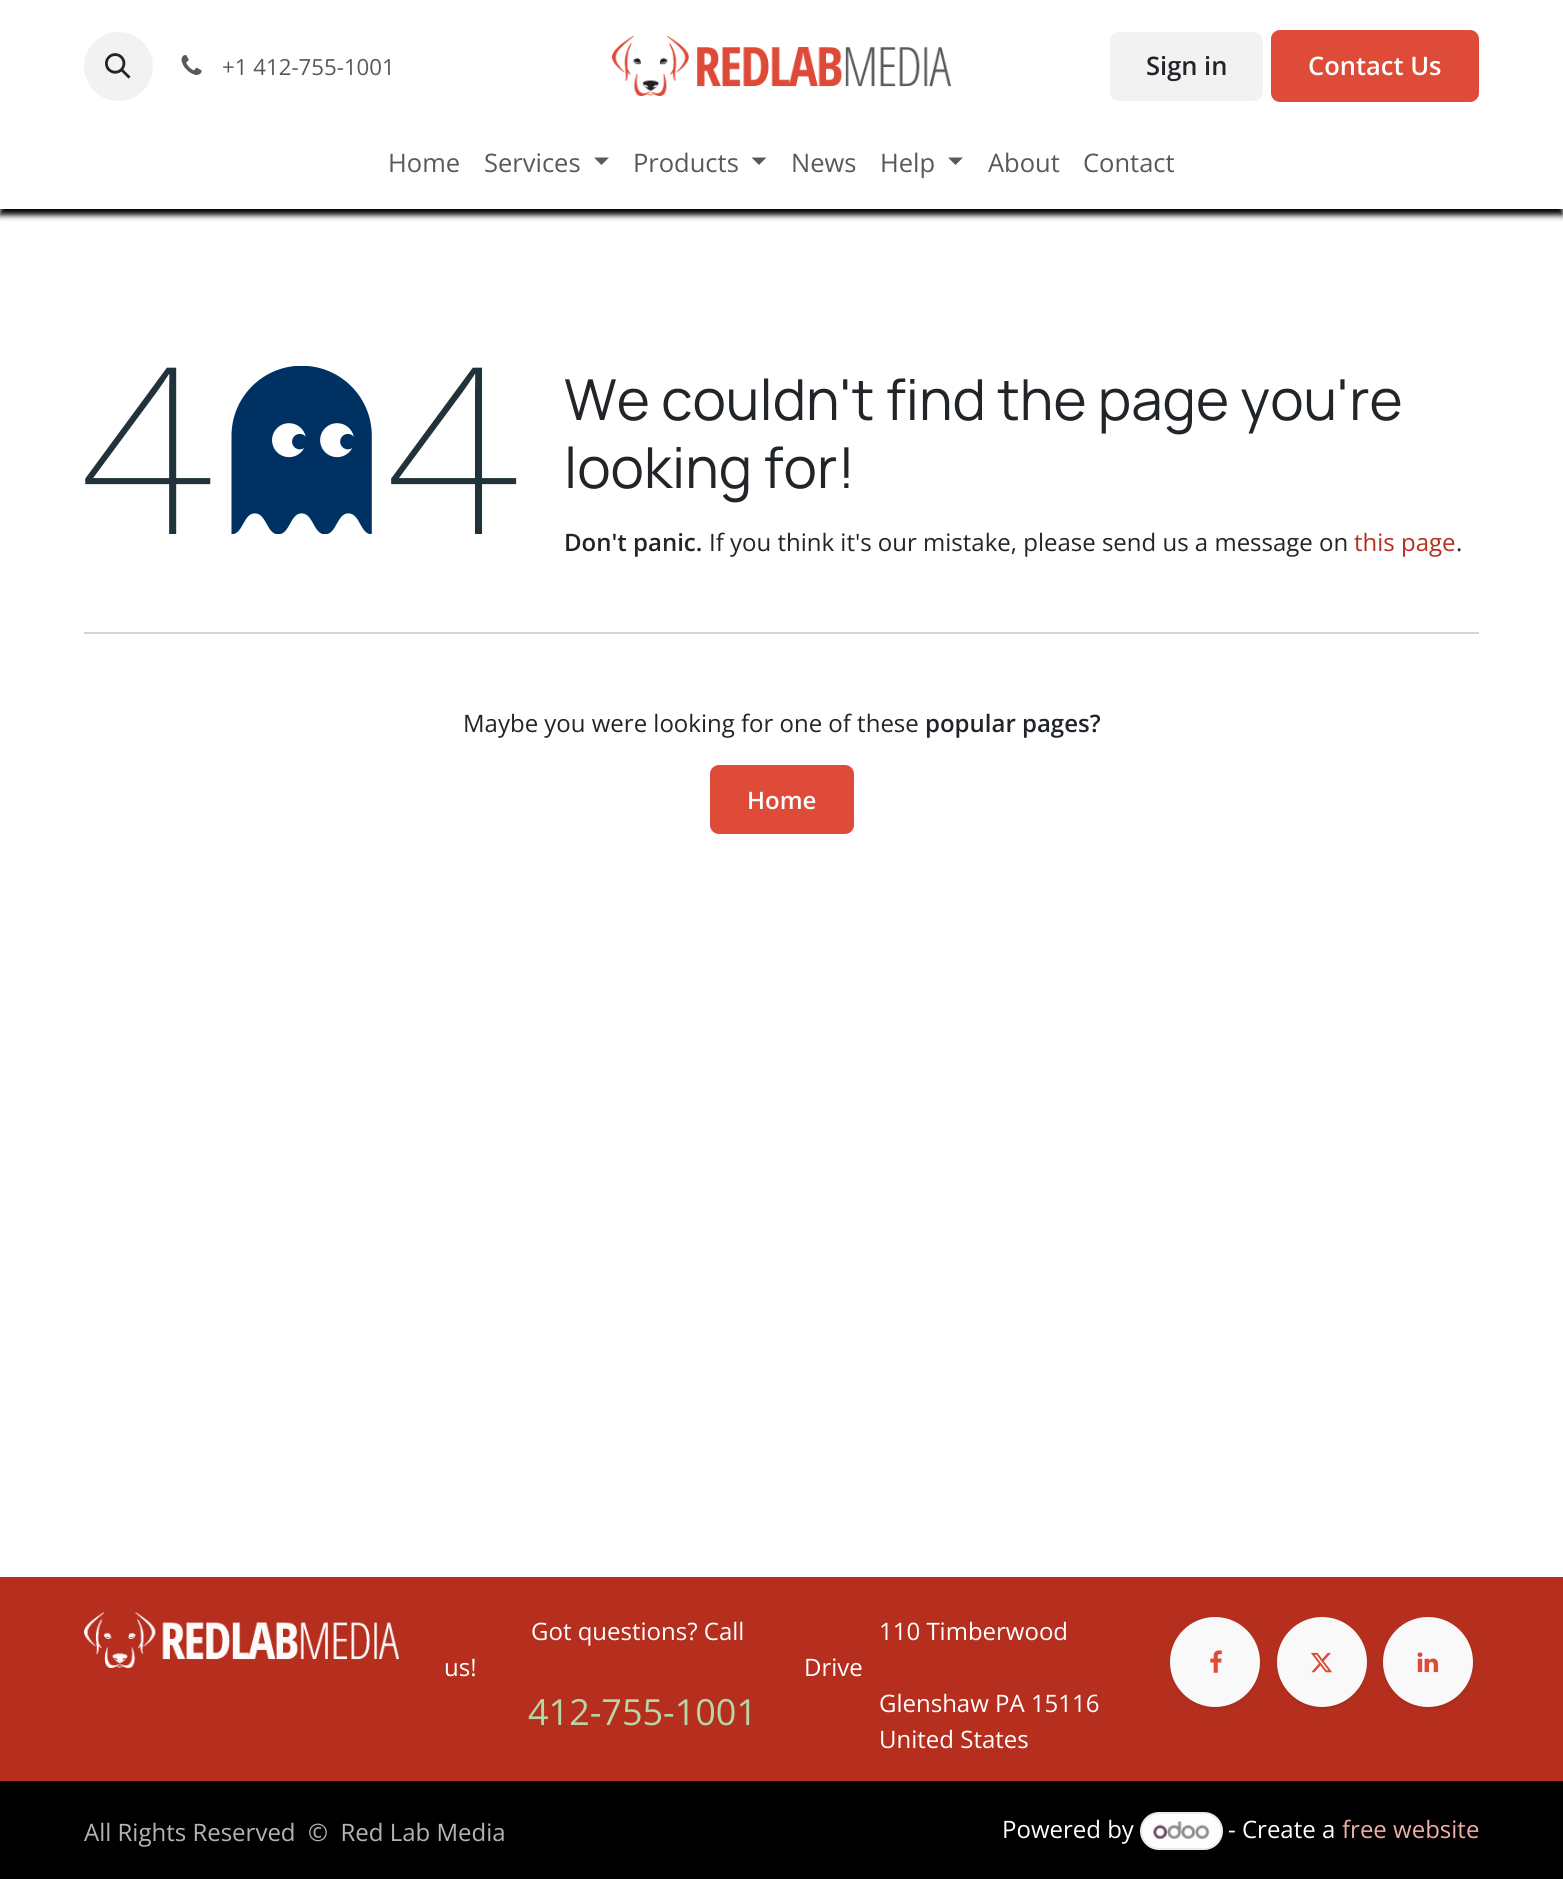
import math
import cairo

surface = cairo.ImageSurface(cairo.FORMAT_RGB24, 1563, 1879)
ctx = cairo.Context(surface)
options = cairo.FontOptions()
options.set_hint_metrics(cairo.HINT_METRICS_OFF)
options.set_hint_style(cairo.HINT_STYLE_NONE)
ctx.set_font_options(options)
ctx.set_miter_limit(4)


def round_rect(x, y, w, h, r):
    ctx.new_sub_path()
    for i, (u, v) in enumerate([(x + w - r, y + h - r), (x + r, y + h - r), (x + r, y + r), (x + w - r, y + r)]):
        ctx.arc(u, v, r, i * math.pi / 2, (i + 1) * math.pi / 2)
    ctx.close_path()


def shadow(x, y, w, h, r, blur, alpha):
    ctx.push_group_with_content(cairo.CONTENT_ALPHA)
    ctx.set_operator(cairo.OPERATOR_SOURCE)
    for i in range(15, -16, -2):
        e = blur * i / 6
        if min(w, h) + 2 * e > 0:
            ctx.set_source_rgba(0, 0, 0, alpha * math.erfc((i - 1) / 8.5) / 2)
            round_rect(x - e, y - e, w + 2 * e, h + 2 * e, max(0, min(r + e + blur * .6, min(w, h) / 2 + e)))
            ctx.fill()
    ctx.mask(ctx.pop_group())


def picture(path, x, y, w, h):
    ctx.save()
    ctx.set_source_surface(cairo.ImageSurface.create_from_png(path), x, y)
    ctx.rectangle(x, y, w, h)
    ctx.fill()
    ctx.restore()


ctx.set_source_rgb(1, 1, 1)
ctx.paint()
ctx.set_source_rgb(0, 0, 0)
shadow(0, 6, 1563, 209, 0, 3, 1)
ctx.set_source_rgb(1, 1, 1)
ctx.rectangle(0, 0, 1563, 209)
ctx.fill()
ctx.set_source_rgb(0.949, 0.949, 0.949)
ctx.arc(118.5, 66.5, 34.5, 0, 2 * math.pi)
ctx.fill()
picture("img1.png", 105, 53, 26, 26)
picture("img2.png", 181, 55, 21, 20)
ctx.select_font_face("Open Sans")
ctx.set_font_size(22.25)
ctx.set_source_rgb(0.349, 0.349, 0.349)
ctx.move_to(222, 75)
ctx.show_text("+1 412-755-1001")
picture("img3.png", 612, 36, 339, 60)
ctx.set_source_rgb(0.949, 0.949, 0.949)
round_rect(1110, 32, 153, 69, 9)
ctx.fill()
ctx.select_font_face("Open Sans SemiBold")
ctx.set_font_size(25.5)
ctx.set_source_rgb(0.129, 0.145, 0.161)
ctx.move_to(1146, 75)
ctx.show_text("Sign in")
ctx.set_source_rgb(0.871, 0.294, 0.22)
round_rect(1272, 31, 206, 70, 8)
ctx.fill_preserve()
ctx.stroke()
ctx.set_source_rgb(1, 1, 1)
ctx.move_to(1308, 75)
ctx.show_text("Contact Us")
ctx.select_font_face("Open Sans")
ctx.set_source_rgb(0.349, 0.349, 0.349)
ctx.move_to(388, 172)
ctx.show_text("Home")
ctx.move_to(484, 172)
ctx.show_text("Services")
ctx.new_path()
ctx.move_to(594, 157.5)
ctx.line_to(609, 157.5)
ctx.line_to(601.5, 165)
ctx.close_path()
ctx.fill()
ctx.move_to(633, 172)
ctx.show_text("Products")
ctx.new_path()
ctx.move_to(751.5, 157.5)
ctx.line_to(766.5, 157.5)
ctx.line_to(759, 165)
ctx.close_path()
ctx.fill()
ctx.move_to(791, 172)
ctx.show_text("News")
ctx.move_to(880, 172)
ctx.show_text("Help")
ctx.new_path()
ctx.move_to(948, 157.5)
ctx.line_to(963, 157.5)
ctx.line_to(955.5, 165)
ctx.close_path()
ctx.fill()
ctx.move_to(988, 172)
ctx.show_text("About")
ctx.move_to(1083, 172)
ctx.show_text("Contact")
picture("img4.png", 85, 366, 432, 168)
ctx.select_font_face("Manrope")
ctx.set_font_size(56.5)
ctx.set_source_rgb(0.129, 0.145, 0.161)
ctx.move_to(564, 420)
ctx.show_text("We couldn't find the page you're")
ctx.move_to(564, 488)
ctx.show_text("looking for!")
ctx.select_font_face("Open Sans SemiBold")
ctx.set_font_size(24)
ctx.move_to(564, 551)
ctx.show_text("Don't panic.")
ctx.select_font_face("Open Sans")
ctx.move_to(709, 551)
ctx.show_text("If you think it's our mistake, please send us a message on")
ctx.set_source_rgb(0.714, 0.184, 0.118)
ctx.move_to(1354, 551)
ctx.show_text("this page")
ctx.set_source_rgb(0.129, 0.145, 0.161)
ctx.move_to(1456, 551)
ctx.show_text(".")
ctx.set_source_rgb(0.808, 0.831, 0.855)
ctx.rectangle(84, 632, 1395, 2)
ctx.fill()
ctx.set_source_rgb(0.129, 0.145, 0.161)
ctx.move_to(463, 732)
ctx.show_text("Maybe you were looking for one of these")
ctx.select_font_face("Open Sans SemiBold")
ctx.move_to(925, 732)
ctx.show_text("popular pages?")
ctx.set_source_rgb(0.871, 0.294, 0.22)
round_rect(711, 766, 142, 67, 8)
ctx.fill_preserve()
ctx.stroke()
ctx.set_source_rgb(1, 1, 1)
ctx.move_to(747, 809)
ctx.show_text("Home")
ctx.set_source_rgb(0.714, 0.184, 0.118)
ctx.rectangle(0, 1577, 1563, 204)
ctx.fill()
picture("img5.png", 84, 1612, 315, 56)
ctx.select_font_face("Open Sans")
ctx.set_source_rgb(1, 1, 1)
ctx.move_to(531, 1640)
ctx.show_text("Got questions? Call")
ctx.move_to(444, 1676)
ctx.show_text("us!")
ctx.set_font_size(36)
ctx.set_source_rgb(0.71, 0.839, 0.647)
ctx.move_to(528, 1725)
ctx.show_text("412-755-1001")
ctx.set_font_size(24)
ctx.set_source_rgb(1, 1, 1)
ctx.move_to(879, 1640)
ctx.show_text("110 Timberwood")
ctx.move_to(804, 1676)
ctx.show_text("Drive")
ctx.move_to(879, 1712)
ctx.show_text("Glenshaw PA 15116")
ctx.move_to(879, 1748)
ctx.show_text("United States")
ctx.set_source_rgb(0, 0, 0)
shadow(1170, 1619, 90, 90, 45, 2, 0.1)
ctx.set_source_rgb(0.973, 0.976, 0.98)
ctx.arc(1215, 1662, 45, 0, 2 * math.pi)
ctx.fill()
picture("img6.png", 1210, 1650, 12, 23)
ctx.set_source_rgb(0, 0, 0)
shadow(1277, 1619, 90, 90, 45, 2, 0.1)
ctx.set_source_rgb(0.973, 0.976, 0.98)
ctx.arc(1322, 1662, 45, 0, 2 * math.pi)
ctx.fill()
picture("img7.png", 1311, 1652, 21, 21)
ctx.set_source_rgb(0, 0, 0)
shadow(1383, 1619, 90, 90, 45, 2, 0.1)
ctx.set_source_rgb(0.973, 0.976, 0.98)
ctx.arc(1428, 1662, 45, 0, 2 * math.pi)
ctx.fill()
picture("img8.png", 1417, 1652, 22, 21)
ctx.set_source_rgb(0, 0, 0)
ctx.rectangle(0, 1781, 1563, 98)
ctx.fill()
ctx.set_source_rgb(0.702, 0.702, 0.702)
ctx.move_to(84, 1841)
ctx.show_text("All Rights Reserved  ©  Red Lab Media")
ctx.set_source_rgb(1, 1, 1)
ctx.move_to(1002, 1838)
ctx.show_text("Powered by")
ctx.set_source_rgb(0.992, 0.992, 0.992)
round_rect(1141, 1813, 81, 36, 18)
ctx.fill_preserve()
ctx.set_source_rgb(0.933, 0.906, 0.902)
ctx.stroke()
picture("img9.png", 1153, 1821, 56, 18)
ctx.set_source_rgb(1, 1, 1)
ctx.move_to(1228, 1838)
ctx.show_text("- Create a")
ctx.set_source_rgb(0.941, 0.682, 0.647)
ctx.move_to(1342, 1838)
ctx.show_text("free website")
surface.write_to_png("page.png")
